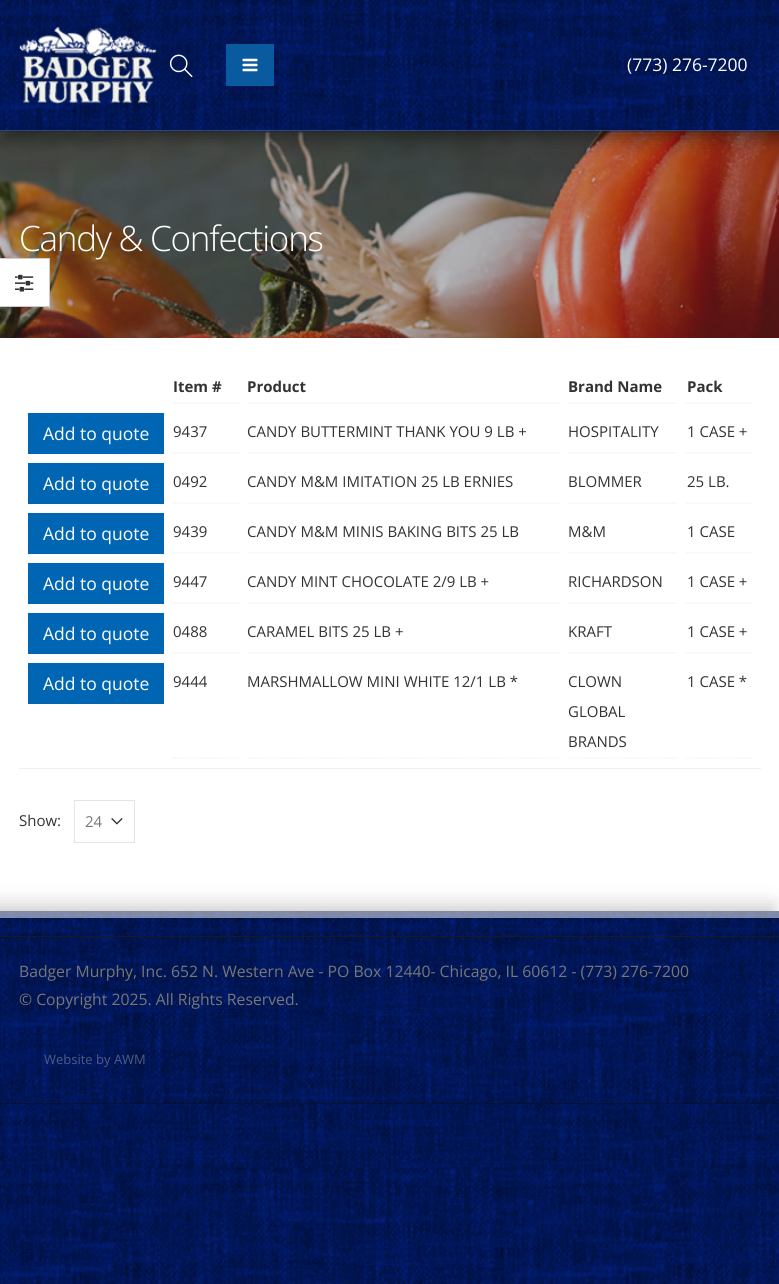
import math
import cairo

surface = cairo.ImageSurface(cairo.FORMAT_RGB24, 779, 1284)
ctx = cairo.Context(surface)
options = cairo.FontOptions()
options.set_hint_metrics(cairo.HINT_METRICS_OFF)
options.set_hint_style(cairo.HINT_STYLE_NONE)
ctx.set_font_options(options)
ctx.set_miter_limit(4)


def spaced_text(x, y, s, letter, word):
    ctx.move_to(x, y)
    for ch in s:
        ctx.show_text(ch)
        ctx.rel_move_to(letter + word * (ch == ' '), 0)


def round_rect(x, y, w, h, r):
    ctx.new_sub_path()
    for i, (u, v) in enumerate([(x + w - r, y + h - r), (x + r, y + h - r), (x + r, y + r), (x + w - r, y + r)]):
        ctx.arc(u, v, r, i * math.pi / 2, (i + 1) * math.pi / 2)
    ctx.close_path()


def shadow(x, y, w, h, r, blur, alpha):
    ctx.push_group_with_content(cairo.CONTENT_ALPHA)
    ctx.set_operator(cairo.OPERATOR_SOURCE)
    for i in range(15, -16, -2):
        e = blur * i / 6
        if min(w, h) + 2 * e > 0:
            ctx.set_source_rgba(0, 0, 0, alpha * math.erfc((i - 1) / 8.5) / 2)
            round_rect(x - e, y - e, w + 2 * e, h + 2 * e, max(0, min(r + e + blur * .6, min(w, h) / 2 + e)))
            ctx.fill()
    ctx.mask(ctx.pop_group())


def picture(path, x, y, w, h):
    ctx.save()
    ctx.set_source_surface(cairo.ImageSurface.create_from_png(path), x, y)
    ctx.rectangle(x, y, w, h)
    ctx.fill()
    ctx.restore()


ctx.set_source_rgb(1, 1, 1)
ctx.paint()
picture("img1.png", 0, 1104, 779, 180)
picture("img2.png", 0, 131, 779, 207)
ctx.set_source_rgb(0, 0, 0)
shadow(6, 6, 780, 132, 0, 9.5, 0.5)
picture("img3.png", 0, 0, 779, 132)
ctx.set_source_rgba(1, 1, 1, 0.2)
ctx.rectangle(0, 130, 779, 1)
ctx.fill()
picture("img4.png", 19, 27, 138, 77)
picture("img5.png", 169, 54, 24, 24)
ctx.set_source_rgb(0.039, 0.353, 0.624)
ctx.rectangle(226, 44, 48, 42)
ctx.fill()
picture("img6.png", 242, 58, 16, 14)
ctx.select_font_face("Open Sans")
ctx.set_font_size(17.5)
ctx.set_source_rgb(1, 1, 1)
ctx.move_to(627, 71)
ctx.show_text("(773) 276-7200")
ctx.set_source_rgba(0.11, 0.11, 0.11, 0.3)
ctx.rectangle(0, 131, 779, 207)
ctx.fill()
ctx.select_font_face("Open Sans Light")
ctx.set_font_size(35)
ctx.set_source_rgb(1, 1, 1)
spaced_text(19, 251, "Candy & Confections", -1.25, 0)
ctx.new_path()
ctx.move_to(172.5, 403)
ctx.line_to(239, 403)
ctx.set_source_rgb(0.933, 0.933, 0.933)
ctx.set_line_width(1.2)
ctx.set_dash([1.25, 1.25])
ctx.stroke()
ctx.select_font_face("Open Sans", cairo.FONT_SLANT_NORMAL, cairo.FONT_WEIGHT_BOLD)
ctx.set_font_size(15)
ctx.set_source_rgb(0.2, 0.2, 0.2)
ctx.move_to(173, 392)
ctx.show_text("Item #")
ctx.new_path()
ctx.move_to(247.5, 403)
ctx.line_to(560, 403)
ctx.set_source_rgb(0.933, 0.933, 0.933)
ctx.stroke()
ctx.set_source_rgb(0.2, 0.2, 0.2)
ctx.move_to(247, 392)
ctx.show_text("Product")
ctx.new_path()
ctx.move_to(569, 403)
ctx.line_to(677.5, 403)
ctx.set_source_rgb(0.933, 0.933, 0.933)
ctx.stroke()
ctx.set_source_rgb(0.2, 0.2, 0.2)
ctx.move_to(568, 392)
ctx.show_text("Brand Name")
ctx.new_path()
ctx.move_to(686, 403)
ctx.line_to(752.5, 403)
ctx.set_source_rgb(0.933, 0.933, 0.933)
ctx.stroke()
ctx.set_source_rgb(0.2, 0.2, 0.2)
ctx.move_to(687, 392)
ctx.show_text("Pack")
ctx.set_source_rgb(0, 0.4, 0.706)
ctx.rectangle(28, 413, 136, 41)
ctx.fill()
ctx.select_font_face("Open Sans")
ctx.set_font_size(17.5)
ctx.set_source_rgb(1, 1, 1)
ctx.move_to(43, 440)
ctx.show_text("Add to quote")
ctx.new_path()
ctx.move_to(172.5, 453)
ctx.line_to(239, 453)
ctx.set_source_rgb(0.933, 0.933, 0.933)
ctx.stroke()
ctx.set_font_size(15)
ctx.set_source_rgb(0.2, 0.2, 0.2)
ctx.move_to(173, 437)
ctx.show_text("9437")
ctx.new_path()
ctx.move_to(247.5, 453)
ctx.line_to(560, 453)
ctx.set_source_rgb(0.933, 0.933, 0.933)
ctx.stroke()
ctx.set_source_rgb(0.2, 0.2, 0.2)
ctx.move_to(247, 437)
ctx.show_text("CANDY BUTTERMINT THANK YOU 9 LB +")
ctx.new_path()
ctx.move_to(569, 453)
ctx.line_to(677.5, 453)
ctx.set_source_rgb(0.933, 0.933, 0.933)
ctx.stroke()
ctx.set_source_rgb(0.2, 0.2, 0.2)
ctx.move_to(568, 437)
ctx.show_text("HOSPITALITY")
ctx.new_path()
ctx.move_to(686, 453)
ctx.line_to(752.5, 453)
ctx.set_source_rgb(0.933, 0.933, 0.933)
ctx.stroke()
ctx.set_source_rgb(0.2, 0.2, 0.2)
ctx.move_to(687, 437)
ctx.show_text("1 CASE +")
ctx.set_source_rgb(0, 0.4, 0.706)
ctx.rectangle(28, 463, 136, 41)
ctx.fill()
ctx.set_font_size(17.5)
ctx.set_source_rgb(1, 1, 1)
ctx.move_to(43, 490)
ctx.show_text("Add to quote")
ctx.new_path()
ctx.move_to(172.5, 503)
ctx.line_to(239, 503)
ctx.set_source_rgb(0.933, 0.933, 0.933)
ctx.stroke()
ctx.set_font_size(15)
ctx.set_source_rgb(0.2, 0.2, 0.2)
ctx.move_to(173, 487)
ctx.show_text("0492")
ctx.new_path()
ctx.move_to(247.5, 503)
ctx.line_to(560, 503)
ctx.set_source_rgb(0.933, 0.933, 0.933)
ctx.stroke()
ctx.set_source_rgb(0.2, 0.2, 0.2)
ctx.move_to(247, 487)
ctx.show_text("CANDY M&M IMITATION 25 LB ERNIES")
ctx.new_path()
ctx.move_to(569, 503)
ctx.line_to(677.5, 503)
ctx.set_source_rgb(0.933, 0.933, 0.933)
ctx.stroke()
ctx.set_source_rgb(0.2, 0.2, 0.2)
ctx.move_to(568, 487)
ctx.show_text("BLOMMER")
ctx.new_path()
ctx.move_to(686, 503)
ctx.line_to(752.5, 503)
ctx.set_source_rgb(0.933, 0.933, 0.933)
ctx.stroke()
ctx.set_source_rgb(0.2, 0.2, 0.2)
ctx.move_to(687, 487)
ctx.show_text("25 LB.")
ctx.set_source_rgb(0, 0.4, 0.706)
ctx.rectangle(28, 513, 136, 41)
ctx.fill()
ctx.set_font_size(17.5)
ctx.set_source_rgb(1, 1, 1)
ctx.move_to(43, 540)
ctx.show_text("Add to quote")
ctx.new_path()
ctx.move_to(172.5, 553)
ctx.line_to(239, 553)
ctx.set_source_rgb(0.933, 0.933, 0.933)
ctx.stroke()
ctx.set_font_size(15)
ctx.set_source_rgb(0.2, 0.2, 0.2)
ctx.move_to(173, 537)
ctx.show_text("9439")
ctx.new_path()
ctx.move_to(247.5, 553)
ctx.line_to(560, 553)
ctx.set_source_rgb(0.933, 0.933, 0.933)
ctx.stroke()
ctx.set_source_rgb(0.2, 0.2, 0.2)
ctx.move_to(247, 537)
ctx.show_text("CANDY M&M MINIS BAKING BITS 25 LB")
ctx.new_path()
ctx.move_to(569, 553)
ctx.line_to(677.5, 553)
ctx.set_source_rgb(0.933, 0.933, 0.933)
ctx.stroke()
ctx.set_source_rgb(0.2, 0.2, 0.2)
ctx.move_to(568, 537)
ctx.show_text("M&M")
ctx.new_path()
ctx.move_to(686, 553)
ctx.line_to(752.5, 553)
ctx.set_source_rgb(0.933, 0.933, 0.933)
ctx.stroke()
ctx.set_source_rgb(0.2, 0.2, 0.2)
ctx.move_to(687, 537)
ctx.show_text("1 CASE")
ctx.set_source_rgb(0, 0.4, 0.706)
ctx.rectangle(28, 563, 136, 41)
ctx.fill()
ctx.set_font_size(17.5)
ctx.set_source_rgb(1, 1, 1)
ctx.move_to(43, 590)
ctx.show_text("Add to quote")
ctx.new_path()
ctx.move_to(172.5, 603)
ctx.line_to(239, 603)
ctx.set_source_rgb(0.933, 0.933, 0.933)
ctx.stroke()
ctx.set_font_size(15)
ctx.set_source_rgb(0.2, 0.2, 0.2)
ctx.move_to(173, 587)
ctx.show_text("9447")
ctx.new_path()
ctx.move_to(247.5, 603)
ctx.line_to(560, 603)
ctx.set_source_rgb(0.933, 0.933, 0.933)
ctx.stroke()
ctx.set_source_rgb(0.2, 0.2, 0.2)
ctx.move_to(247, 587)
ctx.show_text("CANDY MINT CHOCOLATE 2/9 LB +")
ctx.new_path()
ctx.move_to(569, 603)
ctx.line_to(677.5, 603)
ctx.set_source_rgb(0.933, 0.933, 0.933)
ctx.stroke()
ctx.set_source_rgb(0.2, 0.2, 0.2)
ctx.move_to(568, 587)
ctx.show_text("RICHARDSON")
ctx.new_path()
ctx.move_to(686, 603)
ctx.line_to(752.5, 603)
ctx.set_source_rgb(0.933, 0.933, 0.933)
ctx.stroke()
ctx.set_source_rgb(0.2, 0.2, 0.2)
ctx.move_to(687, 587)
ctx.show_text("1 CASE +")
ctx.set_source_rgb(0, 0.4, 0.706)
ctx.rectangle(28, 613, 136, 41)
ctx.fill()
ctx.set_font_size(17.5)
ctx.set_source_rgb(1, 1, 1)
ctx.move_to(43, 640)
ctx.show_text("Add to quote")
ctx.new_path()
ctx.move_to(172.5, 653)
ctx.line_to(239, 653)
ctx.set_source_rgb(0.933, 0.933, 0.933)
ctx.stroke()
ctx.set_font_size(15)
ctx.set_source_rgb(0.2, 0.2, 0.2)
ctx.move_to(173, 637)
ctx.show_text("0488")
ctx.new_path()
ctx.move_to(247.5, 653)
ctx.line_to(560, 653)
ctx.set_source_rgb(0.933, 0.933, 0.933)
ctx.stroke()
ctx.set_source_rgb(0.2, 0.2, 0.2)
ctx.move_to(247, 637)
ctx.show_text("CARAMEL BITS 25 LB +")
ctx.new_path()
ctx.move_to(569, 653)
ctx.line_to(677.5, 653)
ctx.set_source_rgb(0.933, 0.933, 0.933)
ctx.stroke()
ctx.set_source_rgb(0.2, 0.2, 0.2)
ctx.move_to(568, 637)
ctx.show_text("KRAFT")
ctx.new_path()
ctx.move_to(686, 653)
ctx.line_to(752.5, 653)
ctx.set_source_rgb(0.933, 0.933, 0.933)
ctx.stroke()
ctx.set_source_rgb(0.2, 0.2, 0.2)
ctx.move_to(687, 637)
ctx.show_text("1 CASE +")
ctx.set_source_rgb(0, 0.4, 0.706)
ctx.rectangle(28, 663, 136, 41)
ctx.fill()
ctx.set_font_size(17.5)
ctx.set_source_rgb(1, 1, 1)
ctx.move_to(43, 690)
ctx.show_text("Add to quote")
ctx.new_path()
ctx.move_to(172.5, 758)
ctx.line_to(239, 758)
ctx.set_source_rgb(0.933, 0.933, 0.933)
ctx.stroke()
ctx.set_font_size(15)
ctx.set_source_rgb(0.2, 0.2, 0.2)
ctx.move_to(173, 687)
ctx.show_text("9444")
ctx.new_path()
ctx.move_to(247.5, 758)
ctx.line_to(560, 758)
ctx.set_source_rgb(0.933, 0.933, 0.933)
ctx.stroke()
ctx.set_source_rgb(0.2, 0.2, 0.2)
ctx.move_to(247, 687)
ctx.show_text("MARSHMALLOW MINI WHITE 12/1 LB *")
ctx.new_path()
ctx.move_to(569, 758)
ctx.line_to(677.5, 758)
ctx.set_source_rgb(0.933, 0.933, 0.933)
ctx.stroke()
ctx.set_source_rgb(0.2, 0.2, 0.2)
ctx.move_to(568, 687)
ctx.show_text("CLOWN")
ctx.move_to(568, 717)
ctx.show_text("GLOBAL")
ctx.move_to(568, 747)
ctx.show_text("BRANDS")
ctx.new_path()
ctx.move_to(686, 758)
ctx.line_to(752.5, 758)
ctx.set_source_rgb(0.933, 0.933, 0.933)
ctx.stroke()
ctx.set_source_rgb(0.2, 0.2, 0.2)
ctx.move_to(687, 687)
ctx.show_text("1 CASE *")
ctx.set_source_rgb(0.937, 0.937, 0.937)
ctx.rectangle(19, 768, 742, 1)
ctx.fill()
ctx.set_source_rgb(0.2, 0.2, 0.2)
ctx.move_to(19, 826)
ctx.show_text("Show:")
picture("img7.png", 111, 818, 12, 7)
ctx.rectangle(74.5, 800.5, 60, 42)
ctx.set_source_rgb(0.894, 0.894, 0.894)
ctx.set_line_width(1)
ctx.set_dash([])
ctx.stroke()
ctx.set_source_rgb(0.467, 0.467, 0.467)
ctx.move_to(85, 827)
ctx.show_text("24")
ctx.set_source_rgb(0.055, 0.055, 0.055)
ctx.rectangle(0, 911, 779, 193)
ctx.fill()
ctx.save()
ctx.rectangle(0, 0, 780, 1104)
ctx.clip()
ctx.set_source_rgb(0, 0, 0)
shadow(-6, 905, 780, 193, 0, 9.5, 0.2)
ctx.restore()
picture("img8.png", 0, 911, 779, 193)
ctx.set_source_rgba(1, 1, 1, 0.5)
ctx.rectangle(0, 911, 779, 7)
ctx.fill()
ctx.set_source_rgb(0.106, 0.106, 0.106)
ctx.rectangle(0, 936, 779, 1)
ctx.fill()
ctx.set_font_size(15.75)
ctx.set_source_rgb(0.467, 0.467, 0.467)
ctx.move_to(19, 977)
ctx.show_text("Badger Murphy, Inc. 652 N. Western Ave - PO Box 12440- Chicago, IL 60612 - (773) 276-7200")
ctx.move_to(19, 1005)
ctx.show_text("© Copyright 2025. All Rights Reserved.")
ctx.set_font_size(13)
ctx.set_source_rgb(0.302, 0.357, 0.533)
ctx.move_to(44, 1064)
ctx.show_text("Website by AWM")
ctx.set_source_rgb(1, 1, 1)
ctx.rectangle(0, 259, 49, 47)
ctx.fill()
ctx.set_source_rgb(0.8, 0.8, 0.8)
ctx.rectangle(0, 258, 50, 1)
ctx.fill()
ctx.rectangle(49, 258, 1, 50)
ctx.fill()
ctx.rectangle(0, 306, 50, 1)
ctx.fill()
picture("img9.png", 15, 274, 19, 18)
surface.write_to_png("page.png")
